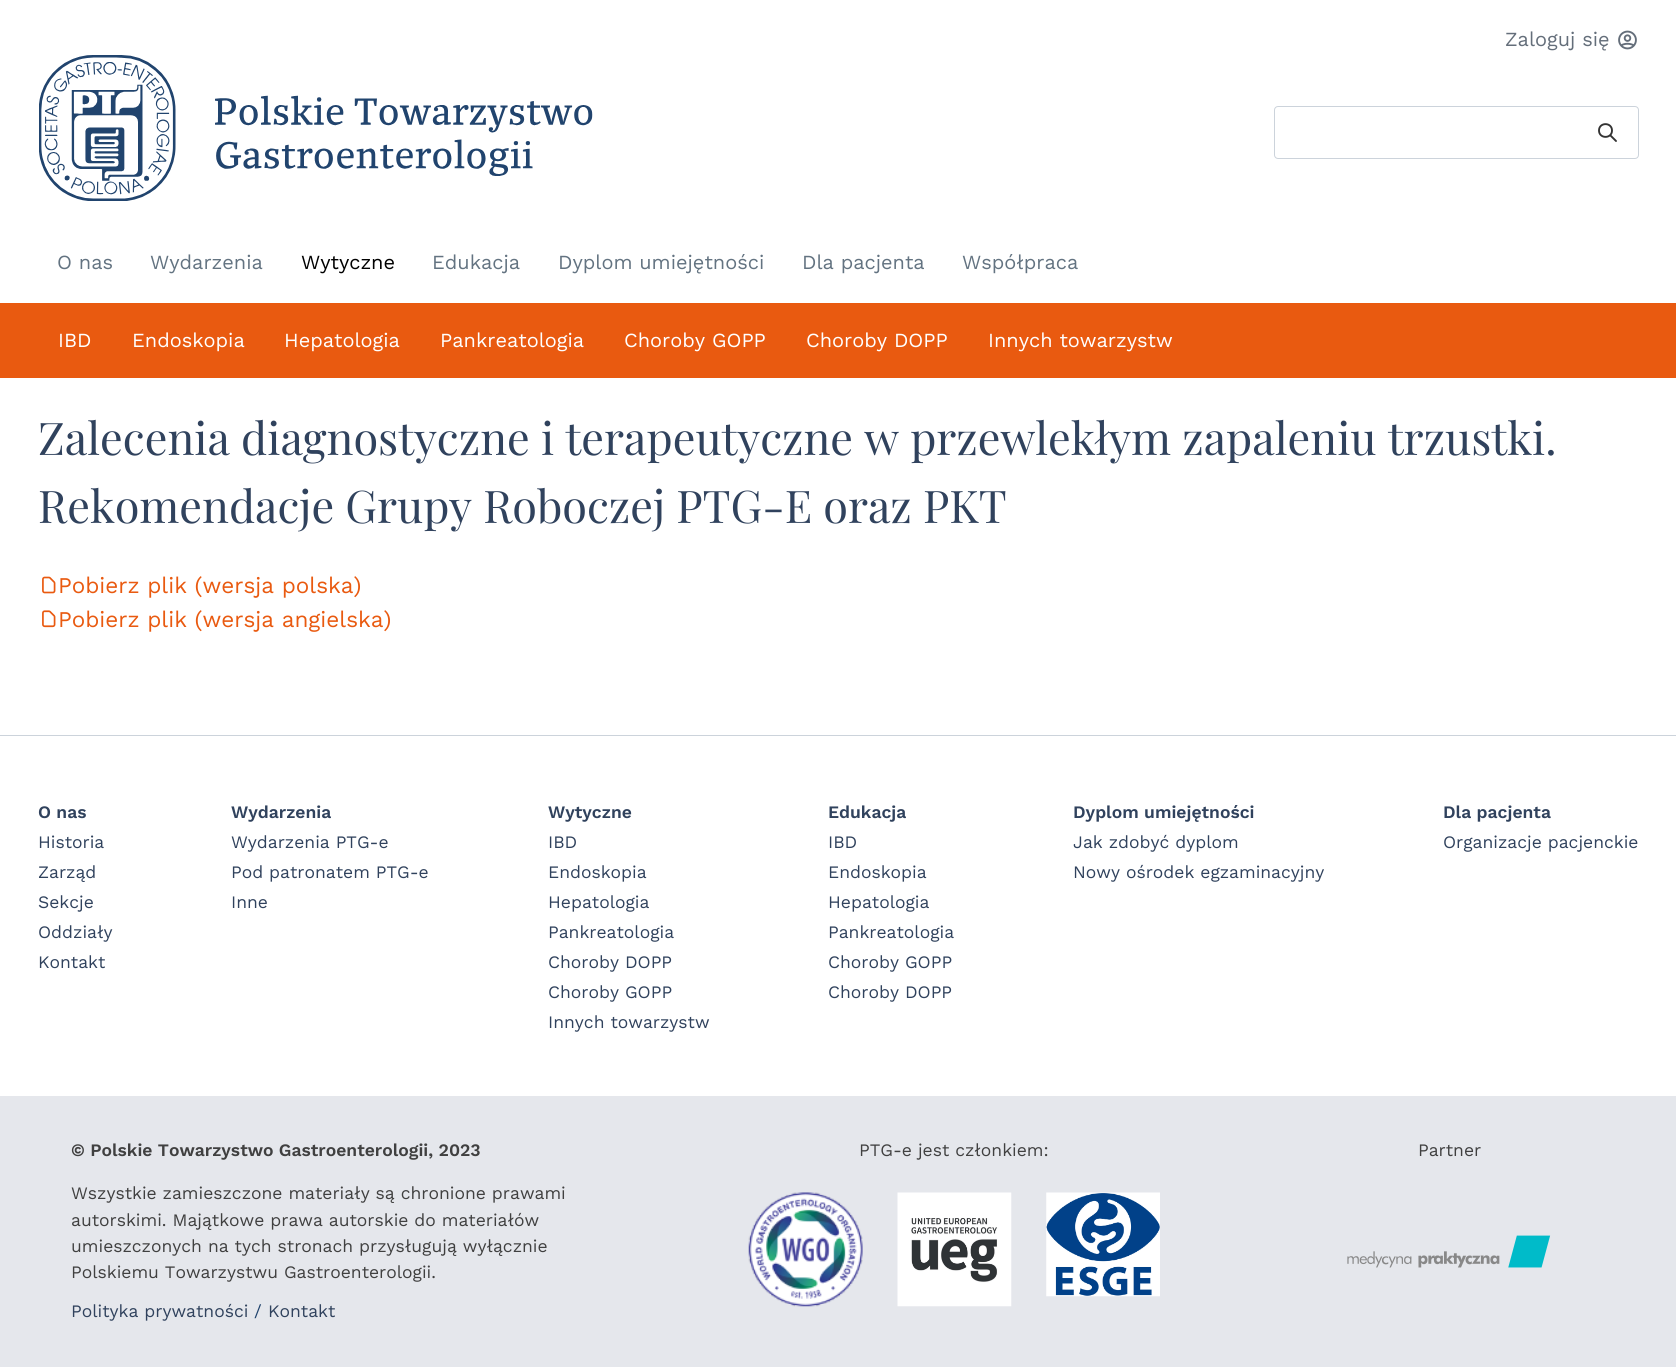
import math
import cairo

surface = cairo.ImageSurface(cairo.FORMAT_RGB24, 1676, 1367)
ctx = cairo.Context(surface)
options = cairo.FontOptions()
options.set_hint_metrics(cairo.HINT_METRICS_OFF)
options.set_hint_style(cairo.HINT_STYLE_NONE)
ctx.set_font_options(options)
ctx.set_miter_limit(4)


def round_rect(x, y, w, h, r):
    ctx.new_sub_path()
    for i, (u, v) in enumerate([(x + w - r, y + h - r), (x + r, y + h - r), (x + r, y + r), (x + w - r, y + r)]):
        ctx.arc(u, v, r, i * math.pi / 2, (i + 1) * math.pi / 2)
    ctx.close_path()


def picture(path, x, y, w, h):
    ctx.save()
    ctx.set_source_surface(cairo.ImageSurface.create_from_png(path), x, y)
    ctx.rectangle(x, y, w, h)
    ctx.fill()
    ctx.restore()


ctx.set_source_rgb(1, 1, 1)
ctx.paint()
ctx.select_font_face("Work Sans")
ctx.set_font_size(20)
ctx.set_source_rgb(0.392, 0.431, 0.478)
ctx.move_to(1505, 46)
ctx.show_text("Zaloguj się")
picture("img1.png", 1618, 30, 19, 20)
picture("img2.png", 39, 55, 554, 146)
round_rect(1274.5, 106.5, 364, 52, 3.5)
ctx.set_source_rgb(0.8, 0.827, 0.859)
ctx.set_line_width(1)
ctx.stroke()
ctx.new_path()
ctx.move_to(1616, 141)
ctx.line_to(1610.5, 135.5)
ctx.move_to(1612, 130.5)
ctx.curve_to(1612, 139, 1599, 139, 1599, 130.5)
ctx.curve_to(1599, 122, 1612, 122, 1612, 130.5)
ctx.close_path()
ctx.set_source_rgb(0.2, 0.2, 0.2)
ctx.set_line_width(1.9)
ctx.set_line_cap(cairo.LINE_CAP_ROUND)
ctx.set_line_join(cairo.LINE_JOIN_ROUND)
ctx.stroke()
ctx.set_source_rgb(0.388, 0.451, 0.506)
ctx.move_to(57, 269)
ctx.show_text("O nas")
ctx.move_to(150, 269)
ctx.show_text("Wydarzenia")
ctx.set_source_rgb(0, 0, 0)
ctx.move_to(301, 269)
ctx.show_text("Wytyczne")
ctx.set_source_rgb(0.388, 0.451, 0.506)
ctx.move_to(432, 269)
ctx.show_text("Edukacja")
ctx.move_to(558, 269)
ctx.show_text("Dyplom umiejętności")
ctx.move_to(802, 269)
ctx.show_text("Dla pacjenta")
ctx.move_to(962, 269)
ctx.show_text("Współpraca")
ctx.set_source_rgb(0.914, 0.353, 0.063)
ctx.rectangle(0, 303, 1676, 75)
ctx.fill()
ctx.set_source_rgb(1, 1, 1)
ctx.move_to(58, 347)
ctx.show_text("IBD")
ctx.move_to(132, 347)
ctx.show_text("Endoskopia")
ctx.move_to(284, 347)
ctx.show_text("Hepatologia")
ctx.move_to(440, 347)
ctx.show_text("Pankreatologia")
ctx.move_to(624, 347)
ctx.show_text("Choroby GOPP")
ctx.move_to(806, 347)
ctx.show_text("Choroby DOPP")
ctx.move_to(988, 347)
ctx.show_text("Innych towarzystw")
ctx.select_font_face("Playfair Display")
ctx.set_font_size(45)
ctx.set_source_rgb(0.188, 0.259, 0.365)
ctx.move_to(38, 455)
ctx.show_text("Zalecenia diagnostyczne i terapeutyczne w przewlekłym zapaleniu trzustki.")
ctx.move_to(38, 523)
ctx.show_text("Rekomendacje Grupy Roboczej PTG-E oraz PKT")
picture("img3.png", 42, 576, 14, 18)
ctx.select_font_face("Work Sans")
ctx.set_font_size(22.5)
ctx.set_source_rgb(0.914, 0.353, 0.063)
ctx.move_to(58, 593)
ctx.show_text("Pobierz plik (wersja polska)")
picture("img4.png", 42, 610, 14, 18)
ctx.move_to(58, 627)
ctx.show_text("Pobierz plik (wersja angielska)")
ctx.set_source_rgb(0.8, 0.827, 0.859)
ctx.rectangle(0, 735, 1676, 1)
ctx.fill()
ctx.select_font_face("Work Sans SemiBold")
ctx.set_font_size(17.5)
ctx.set_source_rgb(0.188, 0.259, 0.365)
ctx.move_to(38, 818)
ctx.show_text("O nas")
ctx.select_font_face("Work Sans")
ctx.move_to(38, 848)
ctx.show_text("Historia")
ctx.move_to(38, 878)
ctx.show_text("Zarząd")
ctx.move_to(38, 908)
ctx.show_text("Sekcje")
ctx.move_to(38, 938)
ctx.show_text("Oddziały")
ctx.move_to(38, 968)
ctx.show_text("Kontakt")
ctx.select_font_face("Work Sans SemiBold")
ctx.move_to(231, 818)
ctx.show_text("Wydarzenia")
ctx.select_font_face("Work Sans")
ctx.move_to(231, 848)
ctx.show_text("Wydarzenia PTG-e")
ctx.move_to(231, 878)
ctx.show_text("Pod patronatem PTG-e")
ctx.move_to(231, 908)
ctx.show_text("Inne")
ctx.select_font_face("Work Sans SemiBold")
ctx.move_to(548, 818)
ctx.show_text("Wytyczne")
ctx.select_font_face("Work Sans")
ctx.move_to(548, 848)
ctx.show_text("IBD")
ctx.move_to(548, 878)
ctx.show_text("Endoskopia")
ctx.move_to(548, 908)
ctx.show_text("Hepatologia")
ctx.move_to(548, 938)
ctx.show_text("Pankreatologia")
ctx.move_to(548, 968)
ctx.show_text("Choroby DOPP")
ctx.move_to(548, 998)
ctx.show_text("Choroby GOPP")
ctx.move_to(548, 1028)
ctx.show_text("Innych towarzystw")
ctx.select_font_face("Work Sans SemiBold")
ctx.move_to(828, 818)
ctx.show_text("Edukacja")
ctx.select_font_face("Work Sans")
ctx.move_to(828, 848)
ctx.show_text("IBD")
ctx.move_to(828, 878)
ctx.show_text("Endoskopia")
ctx.move_to(828, 908)
ctx.show_text("Hepatologia")
ctx.move_to(828, 938)
ctx.show_text("Pankreatologia")
ctx.move_to(828, 968)
ctx.show_text("Choroby GOPP")
ctx.move_to(828, 998)
ctx.show_text("Choroby DOPP")
ctx.select_font_face("Work Sans SemiBold")
ctx.move_to(1073, 818)
ctx.show_text("Dyplom umiejętności")
ctx.select_font_face("Work Sans")
ctx.move_to(1073, 848)
ctx.show_text("Jak zdobyć dyplom")
ctx.move_to(1073, 878)
ctx.show_text("Nowy ośrodek egzaminacyjny")
ctx.select_font_face("Work Sans SemiBold")
ctx.move_to(1443, 818)
ctx.show_text("Dla pacjenta")
ctx.select_font_face("Work Sans")
ctx.move_to(1443, 848)
ctx.show_text("Organizacje pacjenckie")
ctx.set_source_rgb(0.898, 0.906, 0.922)
ctx.rectangle(0, 1096, 1676, 271)
ctx.fill()
ctx.select_font_face("Work Sans SemiBold")
ctx.set_source_rgb(0.251, 0.251, 0.251)
ctx.move_to(71, 1156)
ctx.show_text("© Polskie Towarzystwo Gastroenterologii, 2023")
ctx.select_font_face("Work Sans")
ctx.move_to(71, 1199)
ctx.show_text("Wszystkie zamieszczone materiały są chronione prawami")
ctx.move_to(71, 1226)
ctx.show_text("autorskimi. Majątkowe prawa autorskie do materiałów")
ctx.move_to(71, 1252)
ctx.show_text("umieszczonych na tych stronach przysługują wyłącznie")
ctx.move_to(71, 1278)
ctx.show_text("Polskiemu Towarzystwu Gastroenterologii.")
ctx.set_source_rgb(0.188, 0.259, 0.365)
ctx.move_to(71, 1317)
ctx.show_text("Polityka prywatności")
ctx.set_source_rgb(0.129, 0.267, 0.431)
ctx.move_to(254, 1317)
ctx.show_text("/")
ctx.set_source_rgb(0.188, 0.259, 0.365)
ctx.move_to(268, 1317)
ctx.show_text("Kontakt")
ctx.set_source_rgb(0.251, 0.251, 0.251)
ctx.move_to(859, 1156)
ctx.show_text("PTG-e jest członkiem:")
picture("img5.png", 748, 1192, 115, 115)
picture("img6.png", 897, 1192, 115, 115)
picture("img7.png", 1046, 1192, 114, 105)
ctx.move_to(1418, 1156)
ctx.show_text("Partner")
picture("img8.png", 1347, 1235, 204, 33)
surface.write_to_png("page.png")
